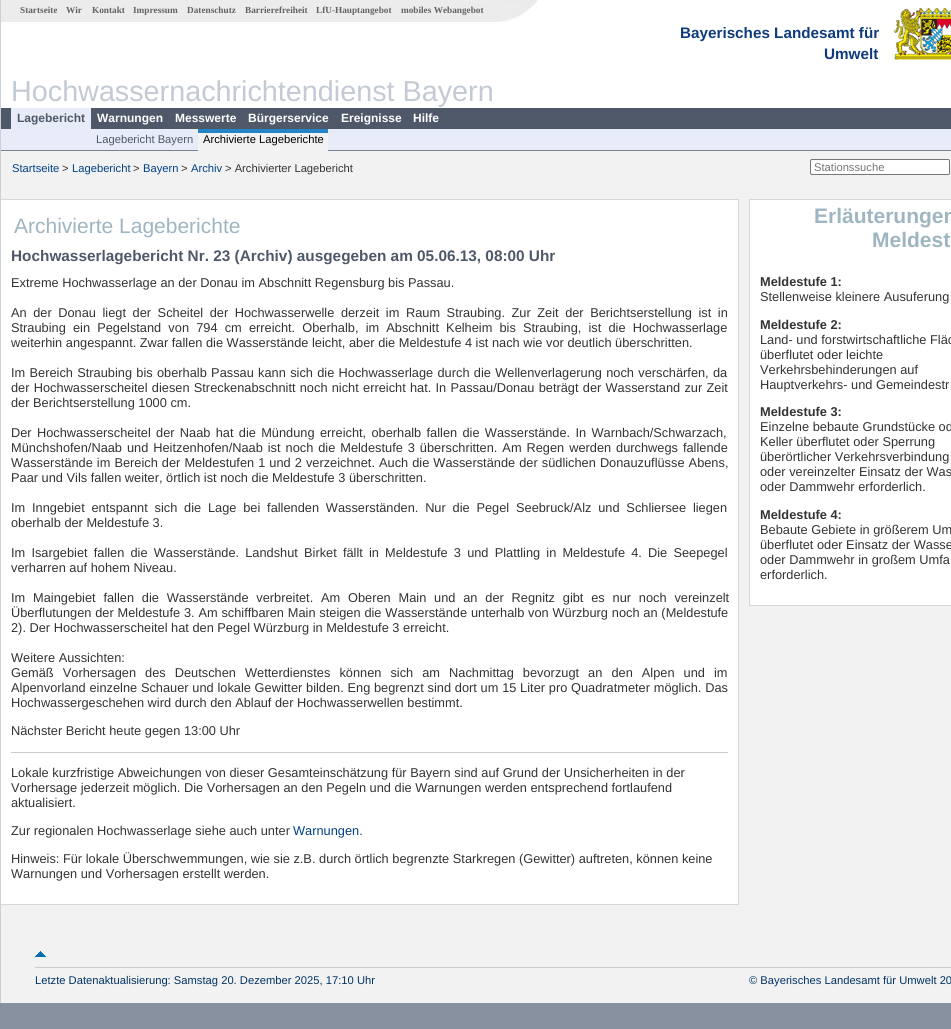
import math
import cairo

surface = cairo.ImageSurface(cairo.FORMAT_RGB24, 951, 1029)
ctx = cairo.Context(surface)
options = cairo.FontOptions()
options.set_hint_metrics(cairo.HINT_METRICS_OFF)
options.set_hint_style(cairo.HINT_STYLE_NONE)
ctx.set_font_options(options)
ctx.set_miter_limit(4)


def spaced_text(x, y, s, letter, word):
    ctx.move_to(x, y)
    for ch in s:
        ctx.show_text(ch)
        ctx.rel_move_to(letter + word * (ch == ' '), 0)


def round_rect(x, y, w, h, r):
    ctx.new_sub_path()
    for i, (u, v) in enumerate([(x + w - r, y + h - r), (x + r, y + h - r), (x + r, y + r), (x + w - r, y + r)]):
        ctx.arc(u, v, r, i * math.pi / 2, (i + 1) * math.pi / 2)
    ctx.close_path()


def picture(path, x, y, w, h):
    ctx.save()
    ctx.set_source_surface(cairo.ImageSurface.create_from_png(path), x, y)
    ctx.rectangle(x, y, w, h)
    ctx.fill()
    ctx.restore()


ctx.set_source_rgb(0.533, 0.569, 0.627)
ctx.paint()
ctx.set_source_rgb(1, 1, 1)
ctx.rectangle(1, 0, 950, 108)
ctx.fill()
ctx.set_source_rgb(0.808, 0.812, 0.831)
ctx.rectangle(0, 0, 1, 1003)
ctx.fill()
picture("img1.png", 894, 8, 57, 52)
ctx.set_source_rgb(0.922, 0.922, 0.922)
ctx.rectangle(1, 0, 497, 22)
ctx.fill()
picture("img2.png", 498, 0, 40, 22)
ctx.select_font_face("Liberation Serif", cairo.FONT_SLANT_NORMAL, cairo.FONT_WEIGHT_BOLD)
ctx.set_font_size(9.25)
ctx.set_source_rgb(0.388, 0.388, 0.388)
ctx.move_to(20, 13)
ctx.show_text("Startseite")
ctx.move_to(66, 13)
ctx.show_text("Wir")
ctx.move_to(92, 13)
ctx.show_text("Kontakt")
ctx.move_to(133, 13)
ctx.show_text("Impressum")
ctx.move_to(187, 13)
ctx.show_text("Datenschutz")
ctx.move_to(245, 13)
ctx.show_text("Barrierefreiheit")
ctx.move_to(316, 13)
ctx.show_text("LfU-Hauptangebot")
ctx.move_to(401, 13)
ctx.show_text("mobiles Webangebot")
ctx.select_font_face("Liberation Sans", cairo.FONT_SLANT_NORMAL, cairo.FONT_WEIGHT_BOLD)
ctx.set_font_size(15.25)
ctx.set_source_rgb(0.059, 0.231, 0.486)
ctx.move_to(680, 38)
ctx.show_text("Bayerisches Landesamt für")
ctx.move_to(824, 59)
ctx.show_text("Umwelt")
ctx.select_font_face("Liberation Sans")
ctx.set_font_size(28.75)
ctx.set_source_rgb(0.765, 0.792, 0.831)
ctx.move_to(11, 101)
ctx.show_text("Hochwassernachrichtendienst Bayern")
ctx.set_source_rgb(0.31, 0.345, 0.412)
ctx.rectangle(1, 108, 950, 21)
ctx.fill()
ctx.set_source_rgb(0.906, 0.925, 0.969)
ctx.rectangle(11, 108, 80, 21)
ctx.fill()
ctx.select_font_face("Liberation Sans", cairo.FONT_SLANT_NORMAL, cairo.FONT_WEIGHT_BOLD)
ctx.set_font_size(12)
ctx.set_source_rgb(0.31, 0.345, 0.412)
ctx.move_to(17, 122)
ctx.show_text("Lagebericht")
ctx.set_source_rgb(1, 1, 1)
ctx.move_to(97, 122)
ctx.show_text("Warnungen")
ctx.move_to(175, 122)
ctx.show_text("Messwerte")
ctx.move_to(248, 122)
ctx.show_text("Bürgerservice")
ctx.move_to(341, 122)
ctx.show_text("Ereignisse")
ctx.move_to(413, 122)
ctx.show_text("Hilfe")
ctx.set_source_rgb(0.906, 0.925, 0.969)
ctx.rectangle(1, 129, 950, 21)
ctx.fill()
ctx.set_source_rgb(0.478, 0.51, 0.569)
ctx.rectangle(1, 150, 950, 1)
ctx.fill()
ctx.select_font_face("Liberation Sans")
ctx.set_font_size(11.2)
ctx.set_source_rgb(0.31, 0.345, 0.412)
ctx.move_to(96, 143)
ctx.show_text("Lagebericht Bayern")
ctx.set_source_rgb(0.949, 0.949, 0.949)
ctx.rectangle(198, 133, 130, 18)
ctx.fill()
ctx.set_source_rgb(0.141, 0.518, 0.776)
ctx.rectangle(198, 129, 130, 4)
ctx.fill()
ctx.set_source_rgb(0, 0, 0)
ctx.move_to(203, 143)
ctx.show_text("Archivierte Lageberichte")
ctx.set_source_rgb(0.949, 0.949, 0.949)
ctx.rectangle(1, 151, 950, 852)
ctx.fill()
ctx.set_source_rgb(0, 0.255, 0.522)
ctx.move_to(12, 172)
ctx.show_text("Startseite")
ctx.set_source_rgb(0.2, 0.2, 0.2)
ctx.move_to(62, 172)
ctx.show_text(">")
ctx.set_source_rgb(0, 0.255, 0.522)
ctx.move_to(72, 172)
ctx.show_text("Lagebericht")
ctx.set_source_rgb(0.2, 0.2, 0.2)
ctx.move_to(133, 172)
ctx.show_text(">")
ctx.set_source_rgb(0, 0.255, 0.522)
ctx.move_to(143, 172)
ctx.show_text("Bayern")
ctx.set_source_rgb(0.2, 0.2, 0.2)
ctx.move_to(181, 172)
ctx.show_text(">")
ctx.set_source_rgb(0, 0.255, 0.522)
ctx.move_to(191, 172)
ctx.show_text("Archiv")
ctx.set_source_rgb(0.2, 0.2, 0.2)
ctx.move_to(225, 172)
ctx.show_text("> Archivierter Lagebericht")
ctx.set_source_rgb(1, 1, 1)
round_rect(810.5, 159.5, 139, 15, 1.5)
ctx.fill_preserve()
ctx.set_source_rgb(0.463, 0.463, 0.463)
ctx.set_line_width(1)
ctx.stroke()
ctx.set_source_rgb(0.459, 0.459, 0.459)
ctx.move_to(814, 171)
ctx.show_text("Stationssuche")
ctx.set_source_rgb(1, 1, 1)
ctx.rectangle(1, 200, 737, 704)
ctx.fill()
ctx.set_source_rgb(0.843, 0.843, 0.843)
ctx.rectangle(1, 199, 738, 1)
ctx.fill()
ctx.rectangle(738, 199, 1, 706)
ctx.fill()
ctx.rectangle(1, 904, 738, 1)
ctx.fill()
ctx.set_font_size(21)
ctx.set_source_rgb(0.624, 0.71, 0.757)
ctx.move_to(14, 233)
ctx.show_text("Archivierte Lageberichte")
ctx.select_font_face("Liberation Sans", cairo.FONT_SLANT_NORMAL, cairo.FONT_WEIGHT_BOLD)
ctx.set_font_size(15.35)
ctx.set_source_rgb(0.31, 0.345, 0.412)
ctx.move_to(11, 261)
ctx.show_text("Hochwasserlagebericht Nr. 23 (Archiv) ausgegeben am 05.06.13, 08:00 Uhr")
ctx.select_font_face("Liberation Sans")
ctx.set_font_size(12.8)
ctx.set_source_rgb(0.2, 0.2, 0.2)
ctx.move_to(11, 287)
ctx.show_text("Extreme Hochwasserlage an der Donau im Abschnitt Regensburg bis Passau.")
spaced_text(11, 317, "An der Donau liegt der Scheitel der Hochwasserwelle derzeit im Raum Straubing. Zur Zeit der Berichtserstellung ist in", 0, 3)
spaced_text(11, 332, "Straubing ein Pegelstand von 794 cm erreicht. Oberhalb, im Abschnitt Kelheim bis Straubing, ist die Hochwasserlage", 0, 3.6)
ctx.move_to(11, 347)
ctx.show_text("weiterhin angespannt. Zwar fallen die Wasserstände leicht, aber die Meldestufe 4 ist nach wie vor deutlich überschritten.")
spaced_text(11, 377, "Im Bereich Straubing bis oberhalb Passau kann sich die Hochwasserlage durch die Wellenverlagerung noch verschärfen, da", 0, 0.75)
spaced_text(11, 392, "der Hochwasserscheitel diesen Streckenabschnitt noch nicht erreicht hat. In Passau/Donau beträgt der Wasserstand zur Zeit", 0, 0.7)
ctx.move_to(11, 407)
ctx.show_text("der Berichtserstellung 1000 cm.")
spaced_text(11, 437, "Der Hochwasserscheitel der Naab hat die Mündung erreicht, oberhalb fallen die Wasserstände. In Warnbach/Schwarzach,", 0, 1.75)
spaced_text(11, 452, "Münchshofen/Naab und Heitzenhofen/Naab ist noch die Meldestufe 3 überschritten. Am Regen werden durchwegs fallende", 0, 1.4)
spaced_text(11, 467, "Wasserstände im Bereich der Meldestufen 1 und 2 verzeichnet. Auch die Wasserstände der südlichen Donauzuflüsse Abens,", 0, 0.5)
ctx.move_to(11, 482)
ctx.show_text("Paar und Vils fallen weiter, örtlich ist noch die Meldestufe 3 überschritten.")
spaced_text(11, 512, "Im Inngebiet entspannt sich die Lage bei fallenden Wasserständen. Nur die Pegel Seebruck/Alz und Schliersee liegen", 0, 3.25)
ctx.move_to(11, 527)
ctx.show_text("oberhalb der Meldestufe 3.")
spaced_text(11, 557, "Im Isargebiet fallen die Wasserstände. Landshut Birket fällt in Meldestufe 3 und Plattling in Meldestufe 4. Die Seepegel", 0, 2.6)
ctx.move_to(11, 572)
ctx.show_text("verharren auf hohem Niveau.")
spaced_text(11, 602, "Im Maingebiet fallen die Wasserstände verbreitet. Am Oberen Main und an der Regnitz gibt es nur noch vereinzelt", 0, 4.25)
spaced_text(11, 617, "Überflutungen der Meldestufe 3. Am schiffbaren Main steigen die Wasserstände unterhalb von Würzburg noch an (Meldestufe", 0, 0.25)
ctx.move_to(11, 632)
ctx.show_text("2). Der Hochwasserscheitel hat den Pegel Würzburg in Meldestufe 3 erreicht.")
ctx.move_to(11, 662)
ctx.show_text("Weitere Aussichten:")
spaced_text(11, 677, "Gemäß Vorhersagen des Deutschen Wetterdienstes können sich am Nachmittag bevorzugt an den Alpen und im", 0, 5.5)
spaced_text(11, 692, "Alpenvorland einzelne Schauer und lokale Gewitter bilden. Eng begrenzt sind dort um 15 Liter pro Quadratmeter möglich. Das", 0, 0.2)
ctx.move_to(11, 707)
ctx.show_text("Hochwassergeschehen wird durch den Ablauf der Hochwasserwellen bestimmt.")
ctx.move_to(11, 735)
ctx.show_text("Nächster Bericht heute gegen 13:00 Uhr")
ctx.set_source_rgb(0.8, 0.8, 0.8)
ctx.rectangle(11, 752, 717, 1)
ctx.fill()
ctx.set_source_rgb(0.2, 0.2, 0.2)
ctx.move_to(11, 777)
ctx.show_text("Lokale kurzfristige Abweichungen von dieser Gesamteinschätzung für Bayern sind auf Grund der Unsicherheiten in der")
ctx.move_to(11, 792)
ctx.show_text("Vorhersage jederzeit möglich. Die Vorhersagen an den Pegeln und die Warnungen werden entsprechend fortlaufend")
ctx.move_to(11, 807)
ctx.show_text("aktualisiert.")
ctx.move_to(11, 835)
ctx.show_text("Zur regionalen Hochwasserlage siehe auch unter")
ctx.set_source_rgb(0, 0.255, 0.522)
ctx.move_to(293, 835)
ctx.show_text("Warnungen.")
ctx.set_source_rgb(0.2, 0.2, 0.2)
ctx.move_to(11, 863)
ctx.show_text("Hinweis: Für lokale Überschwemmungen, wie sie z.B. durch örtlich begrenzte Starkregen (Gewitter) auftreten, können keine")
ctx.move_to(11, 878)
ctx.show_text("Warnungen und Vorhersagen erstellt werden.")
ctx.set_source_rgb(1, 1, 1)
ctx.rectangle(750, 200, 201, 405)
ctx.fill()
ctx.set_source_rgb(0.843, 0.843, 0.843)
ctx.rectangle(749, 199, 202, 1)
ctx.fill()
ctx.rectangle(749, 605, 202, 1)
ctx.fill()
ctx.rectangle(749, 199, 1, 407)
ctx.fill()
ctx.select_font_face("Liberation Sans", cairo.FONT_SLANT_NORMAL, cairo.FONT_WEIGHT_BOLD)
ctx.set_font_size(21)
ctx.set_source_rgb(0.624, 0.71, 0.757)
ctx.move_to(814, 223)
ctx.show_text("Erläuterungen")
ctx.move_to(872, 247)
ctx.show_text("Meldest")
ctx.set_font_size(12.8)
ctx.set_source_rgb(0.2, 0.2, 0.2)
ctx.move_to(760, 286)
ctx.show_text("Meldestufe 1:")
ctx.select_font_face("Liberation Sans")
ctx.move_to(760, 301)
ctx.show_text("Stellenweise kleinere Ausuferung")
ctx.select_font_face("Liberation Sans", cairo.FONT_SLANT_NORMAL, cairo.FONT_WEIGHT_BOLD)
ctx.move_to(760, 329)
ctx.show_text("Meldestufe 2:")
ctx.select_font_face("Liberation Sans")
ctx.move_to(760, 344)
ctx.show_text("Land- und forstwirtschaftliche Fläc")
ctx.move_to(760, 359)
ctx.show_text("überflutet oder leichte")
ctx.move_to(760, 374)
ctx.show_text("Verkehrsbehinderungen auf")
ctx.move_to(760, 389)
ctx.show_text("Hauptverkehrs- und Gemeindestr")
ctx.select_font_face("Liberation Sans", cairo.FONT_SLANT_NORMAL, cairo.FONT_WEIGHT_BOLD)
ctx.move_to(760, 416)
ctx.show_text("Meldestufe 3:")
ctx.select_font_face("Liberation Sans")
ctx.move_to(760, 431)
ctx.show_text("Einzelne bebaute Grundstücke od")
ctx.move_to(760, 446)
ctx.show_text("Keller überflutet oder Sperrung")
ctx.move_to(760, 461)
ctx.show_text("überörtlicher Verkehrsverbindung")
ctx.move_to(760, 476)
ctx.show_text("oder vereinzelter Einsatz der Was")
ctx.move_to(760, 491)
ctx.show_text("oder Dammwehr erforderlich.")
ctx.select_font_face("Liberation Sans", cairo.FONT_SLANT_NORMAL, cairo.FONT_WEIGHT_BOLD)
ctx.move_to(760, 519)
ctx.show_text("Meldestufe 4:")
ctx.select_font_face("Liberation Sans")
ctx.move_to(760, 534)
ctx.show_text("Bebaute Gebiete in größerem Um")
ctx.move_to(760, 549)
ctx.show_text("überflutet oder Einsatz der Wasse")
ctx.move_to(760, 564)
ctx.show_text("oder Dammwehr in großem Umfa")
ctx.move_to(760, 579)
ctx.show_text("erforderlich.")
picture("img3.png", 35, 951, 11, 6)
ctx.set_source_rgb(0.8, 0.8, 0.8)
ctx.rectangle(35, 967, 916, 1)
ctx.fill()
ctx.set_font_size(11.2)
ctx.set_source_rgb(0, 0.2, 0.4)
ctx.move_to(35, 984)
ctx.show_text("Letzte Datenaktualisierung: Samstag 20. Dezember 2025, 17:10 Uhr")
ctx.move_to(749, 984)
ctx.show_text("© Bayerisches Landesamt für Umwelt 20")
surface.write_to_png("page.png")
